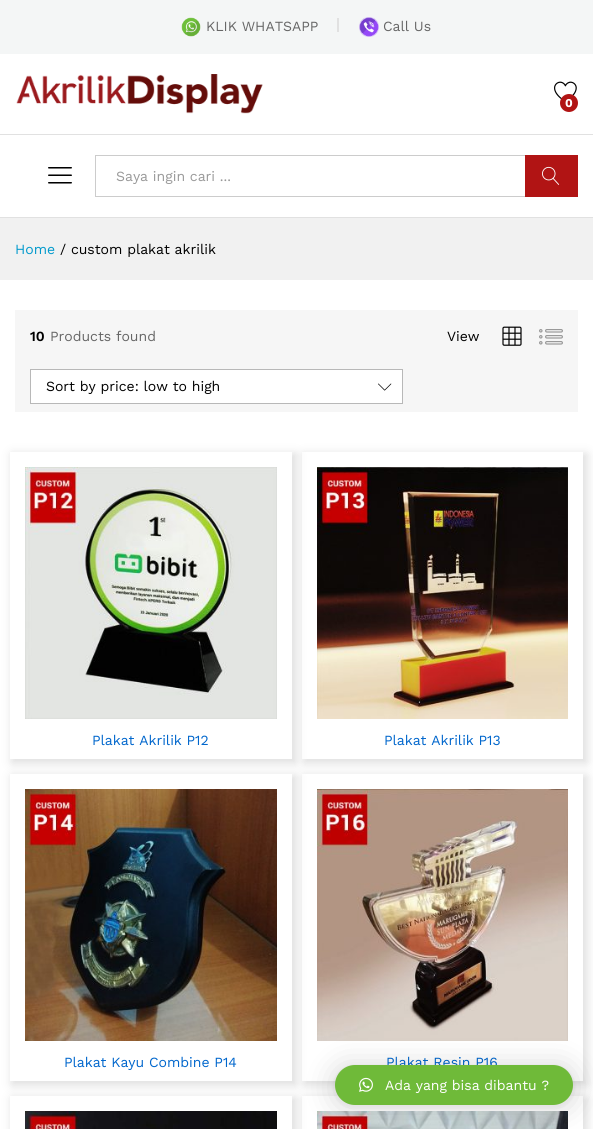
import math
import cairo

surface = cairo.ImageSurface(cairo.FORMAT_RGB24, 593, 1129)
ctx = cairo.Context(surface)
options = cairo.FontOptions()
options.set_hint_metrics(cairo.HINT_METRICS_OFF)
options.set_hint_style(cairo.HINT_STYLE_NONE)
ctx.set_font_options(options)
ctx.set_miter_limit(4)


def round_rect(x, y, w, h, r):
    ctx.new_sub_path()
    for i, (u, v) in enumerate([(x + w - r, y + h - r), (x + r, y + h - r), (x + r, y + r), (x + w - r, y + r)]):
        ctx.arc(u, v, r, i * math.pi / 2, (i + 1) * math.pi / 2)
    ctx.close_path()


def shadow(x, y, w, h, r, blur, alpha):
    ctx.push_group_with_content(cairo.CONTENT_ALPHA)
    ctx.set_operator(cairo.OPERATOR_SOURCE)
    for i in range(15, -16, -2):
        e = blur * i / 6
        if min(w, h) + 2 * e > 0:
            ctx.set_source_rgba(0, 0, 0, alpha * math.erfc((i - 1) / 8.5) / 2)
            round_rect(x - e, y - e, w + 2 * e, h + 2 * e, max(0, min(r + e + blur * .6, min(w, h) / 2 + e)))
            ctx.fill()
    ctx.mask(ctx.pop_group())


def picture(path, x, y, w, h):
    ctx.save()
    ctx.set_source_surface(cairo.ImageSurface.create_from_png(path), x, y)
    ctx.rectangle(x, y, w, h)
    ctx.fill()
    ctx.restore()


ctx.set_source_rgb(1, 1, 1)
ctx.paint()
ctx.set_source_rgb(0.957, 0.961, 0.961)
ctx.rectangle(0, 0, 593, 54)
ctx.fill()
picture("img1.png", 181, 17, 20, 20)
ctx.select_font_face("Work Sans")
ctx.set_font_size(14)
ctx.set_source_rgb(0.4, 0.4, 0.4)
ctx.move_to(206, 31)
ctx.show_text("KLIK WHATSAPP")
ctx.set_source_rgb(0.882, 0.882, 0.882)
ctx.rectangle(337, 18, 2, 14)
ctx.fill()
picture("img2.png", 359, 17, 20, 20)
ctx.set_source_rgb(0.4, 0.4, 0.4)
ctx.move_to(383, 31)
ctx.show_text("Call Us")
picture("img3.png", 16, 74, 247, 40)
picture("img4.png", 554, 81, 23, 18)
ctx.set_source_rgb(0.694, 0.082, 0.082)
ctx.arc(569, 103, 9, 0, 2 * math.pi)
ctx.fill()
ctx.select_font_face("Work Sans", cairo.FONT_SLANT_NORMAL, cairo.FONT_WEIGHT_BOLD)
ctx.set_font_size(12)
ctx.set_source_rgb(1, 1, 1)
ctx.move_to(565, 107)
ctx.show_text("0")
ctx.set_source_rgb(0.882, 0.882, 0.882)
ctx.rectangle(0, 134, 593, 1)
ctx.fill()
ctx.rectangle(0, 217, 593, 1)
ctx.fill()
picture("img5.png", 48, 167, 24, 17)
ctx.set_source_rgb(0.8, 0.8, 0.8)
ctx.rectangle(95, 155, 1, 42)
ctx.fill()
ctx.rectangle(96, 155, 429, 1)
ctx.fill()
ctx.rectangle(96, 196, 429, 1)
ctx.fill()
ctx.select_font_face("Work Sans")
ctx.set_font_size(14)
ctx.set_source_rgb(0.6, 0.6, 0.6)
ctx.move_to(116, 181)
ctx.show_text("Saya ingin cari ...")
ctx.set_source_rgb(0.694, 0.082, 0.082)
ctx.rectangle(525, 155, 53, 42)
ctx.fill()
picture("img6.png", 542, 166, 18, 19)
ctx.set_source_rgb(0.945, 0.945, 0.945)
ctx.rectangle(0, 218, 593, 62)
ctx.fill()
ctx.set_source_rgb(0, 0.6, 0.8)
ctx.move_to(15, 254)
ctx.show_text("Home")
ctx.set_source_rgb(0, 0, 0)
ctx.move_to(60, 254)
ctx.show_text("/ custom plakat akrilik")
ctx.set_source_rgb(0.961, 0.961, 0.961)
ctx.rectangle(15, 310, 563, 102)
ctx.fill()
ctx.select_font_face("Work Sans SemiBold")
ctx.set_source_rgb(0, 0, 0)
ctx.move_to(30, 341)
ctx.show_text("10")
ctx.select_font_face("Work Sans")
ctx.set_source_rgb(0.4, 0.4, 0.4)
ctx.move_to(50, 341)
ctx.show_text("Products found")
ctx.set_source_rgb(0, 0, 0)
ctx.move_to(447, 341)
ctx.show_text("View")
picture("img7.png", 502, 326, 20, 20)
picture("img8.png", 539, 329, 24, 16)
ctx.set_source_rgb(1, 1, 1)
ctx.rectangle(30.5, 369.5, 372, 34)
ctx.fill_preserve()
ctx.set_source_rgb(0.722, 0.722, 0.722)
ctx.set_line_width(1)
ctx.stroke()
ctx.set_source_rgb(0, 0, 0)
ctx.move_to(46, 391)
ctx.show_text("Sort by price: low to high")
picture("img9.png", 378, 383, 14, 8)
ctx.save()
ctx.set_fill_rule(cairo.FILL_RULE_EVEN_ODD)
ctx.new_path()
ctx.move_to(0, 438)
ctx.line_to(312, 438)
ctx.line_to(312, 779)
ctx.line_to(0, 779)
ctx.close_path()
ctx.move_to(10, 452)
ctx.line_to(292, 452)
ctx.line_to(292, 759)
ctx.line_to(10, 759)
ctx.close_path()
ctx.clip()
ctx.set_source_rgb(0.867, 0.867, 0.867)
shadow(12, 454, 284, 309, 0, 5, 1)
ctx.restore()
picture("img10.png", 25, 467, 252, 252)
ctx.set_source_rgb(0, 0.4, 0.8)
ctx.move_to(92, 745)
ctx.show_text("Plakat Akrilik P12")
ctx.save()
ctx.set_fill_rule(cairo.FILL_RULE_EVEN_ODD)
ctx.new_path()
ctx.move_to(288, 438)
ctx.line_to(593, 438)
ctx.line_to(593, 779)
ctx.line_to(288, 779)
ctx.close_path()
ctx.move_to(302, 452)
ctx.line_to(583, 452)
ctx.line_to(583, 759)
ctx.line_to(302, 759)
ctx.close_path()
ctx.clip()
ctx.set_source_rgb(0.867, 0.867, 0.867)
shadow(304, 454, 283, 309, 0, 5, 1)
ctx.restore()
picture("img11.png", 317, 467, 251, 252)
ctx.move_to(384, 745)
ctx.show_text("Plakat Akrilik P13")
ctx.save()
ctx.set_fill_rule(cairo.FILL_RULE_EVEN_ODD)
ctx.new_path()
ctx.move_to(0, 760)
ctx.line_to(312, 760)
ctx.line_to(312, 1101)
ctx.line_to(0, 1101)
ctx.close_path()
ctx.move_to(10, 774)
ctx.line_to(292, 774)
ctx.line_to(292, 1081)
ctx.line_to(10, 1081)
ctx.close_path()
ctx.clip()
ctx.set_source_rgb(0.867, 0.867, 0.867)
shadow(12, 776, 284, 309, 0, 5, 1)
ctx.restore()
picture("img12.png", 25, 789, 252, 252)
ctx.move_to(64, 1067)
ctx.show_text("Plakat Kayu Combine P14")
ctx.save()
ctx.set_fill_rule(cairo.FILL_RULE_EVEN_ODD)
ctx.new_path()
ctx.move_to(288, 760)
ctx.line_to(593, 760)
ctx.line_to(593, 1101)
ctx.line_to(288, 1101)
ctx.close_path()
ctx.move_to(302, 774)
ctx.line_to(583, 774)
ctx.line_to(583, 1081)
ctx.line_to(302, 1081)
ctx.close_path()
ctx.clip()
ctx.set_source_rgb(0.867, 0.867, 0.867)
shadow(304, 776, 283, 309, 0, 5, 1)
ctx.restore()
picture("img13.png", 317, 789, 251, 252)
ctx.move_to(386, 1067)
ctx.show_text("Plakat Resin P16")
ctx.save()
ctx.set_fill_rule(cairo.FILL_RULE_EVEN_ODD)
ctx.new_path()
ctx.move_to(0, 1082)
ctx.line_to(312, 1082)
ctx.line_to(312, 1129)
ctx.line_to(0, 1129)
ctx.close_path()
ctx.move_to(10, 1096)
ctx.line_to(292, 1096)
ctx.line_to(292, 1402)
ctx.line_to(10, 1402)
ctx.close_path()
ctx.clip()
ctx.set_source_rgb(0.867, 0.867, 0.867)
shadow(12, 1098, 284, 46, 0, 5, 1)
ctx.restore()
picture("img14.png", 25, 1111, 252, 18)
ctx.save()
ctx.set_fill_rule(cairo.FILL_RULE_EVEN_ODD)
ctx.new_path()
ctx.move_to(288, 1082)
ctx.line_to(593, 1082)
ctx.line_to(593, 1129)
ctx.line_to(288, 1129)
ctx.close_path()
ctx.move_to(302, 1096)
ctx.line_to(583, 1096)
ctx.line_to(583, 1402)
ctx.line_to(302, 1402)
ctx.close_path()
ctx.clip()
ctx.set_source_rgb(0.867, 0.867, 0.867)
shadow(304, 1098, 283, 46, 0, 5, 1)
ctx.restore()
picture("img15.png", 317, 1111, 251, 18)
ctx.set_source_rgb(0, 0, 0)
shadow(335, 1067, 238, 40, 20, 16, 0.16)
shadow(335, 1066, 238, 40, 20, 3, 0.06)
ctx.set_source_rgb(0.435, 0.729, 0.224)
round_rect(335, 1065, 238, 40, 20)
ctx.fill()
picture("img16.png", 359, 1077, 14, 15)
ctx.set_source_rgb(1, 1, 1)
ctx.move_to(385, 1090)
ctx.show_text("Ada yang bisa dibantu ?")
surface.write_to_png("page.png")
